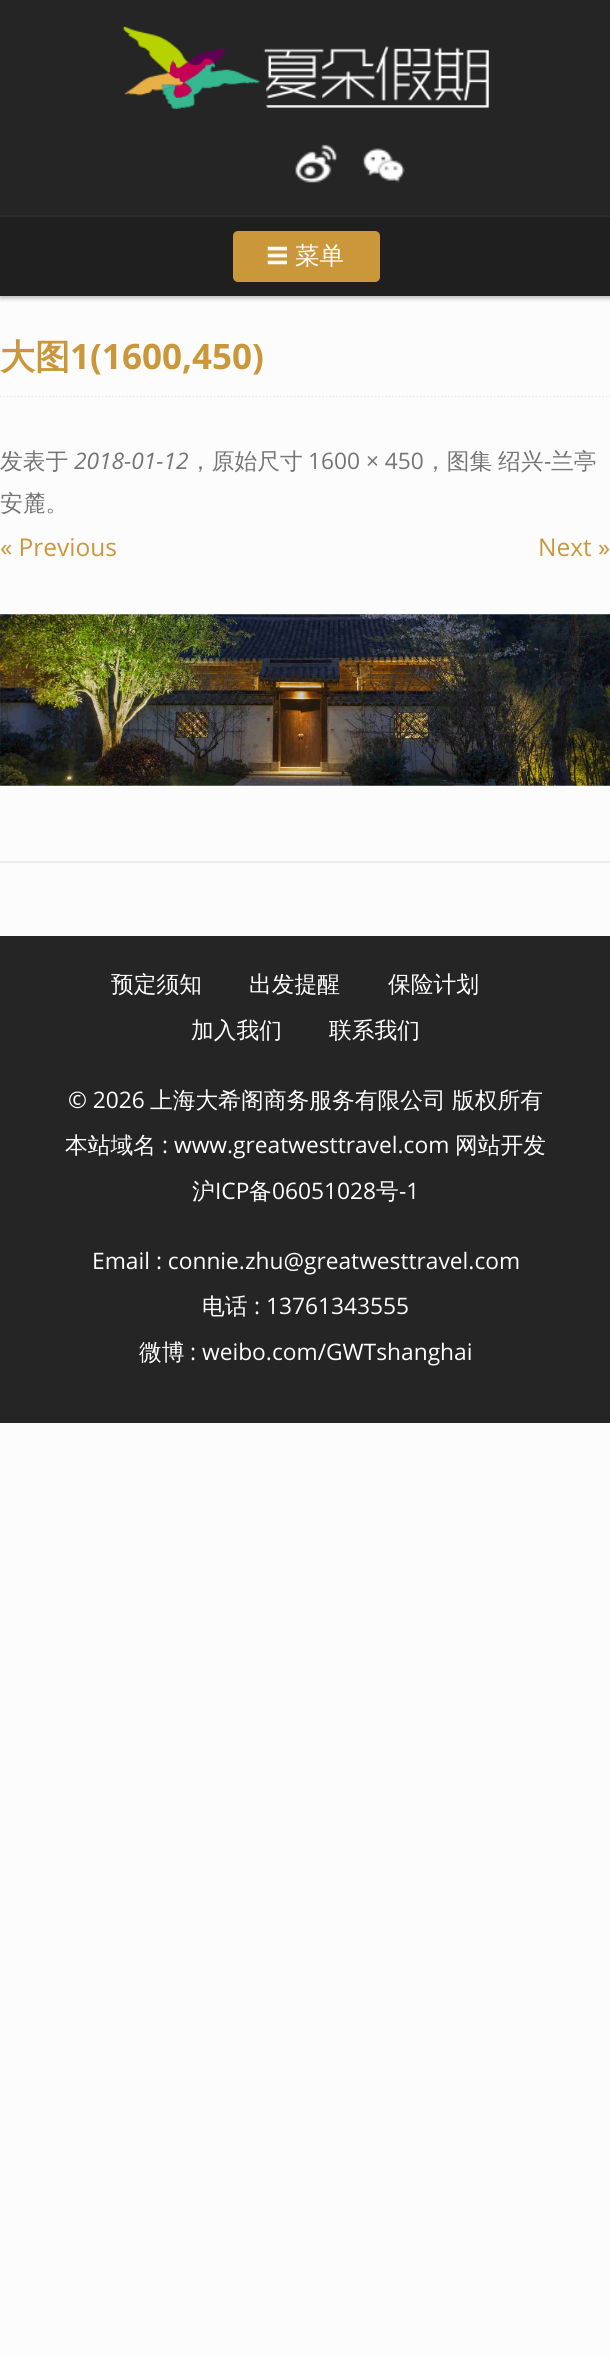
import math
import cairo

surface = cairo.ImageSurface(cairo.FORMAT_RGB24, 610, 2359)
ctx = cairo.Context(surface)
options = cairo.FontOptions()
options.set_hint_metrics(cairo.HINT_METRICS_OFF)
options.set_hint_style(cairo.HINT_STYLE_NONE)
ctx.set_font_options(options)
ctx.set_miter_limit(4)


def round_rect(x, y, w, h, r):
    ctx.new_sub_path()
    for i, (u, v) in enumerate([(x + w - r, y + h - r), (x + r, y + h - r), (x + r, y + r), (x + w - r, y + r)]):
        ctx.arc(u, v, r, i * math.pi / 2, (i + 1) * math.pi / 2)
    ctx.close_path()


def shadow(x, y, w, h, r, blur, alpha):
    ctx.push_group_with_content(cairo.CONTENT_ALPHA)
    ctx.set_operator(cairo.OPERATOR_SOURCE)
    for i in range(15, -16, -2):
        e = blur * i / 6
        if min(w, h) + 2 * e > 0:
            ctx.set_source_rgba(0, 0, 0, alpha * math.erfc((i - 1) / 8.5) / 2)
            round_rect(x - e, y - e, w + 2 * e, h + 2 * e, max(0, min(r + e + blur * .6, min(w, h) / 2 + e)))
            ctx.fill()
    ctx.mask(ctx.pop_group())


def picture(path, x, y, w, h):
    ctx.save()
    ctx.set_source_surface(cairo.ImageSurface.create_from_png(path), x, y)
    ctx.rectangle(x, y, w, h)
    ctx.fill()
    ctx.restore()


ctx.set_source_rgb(0.988, 0.988, 0.988)
ctx.paint()
ctx.set_source_rgb(0, 0, 0)
shadow(0, 2, 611, 296, 0, 2.5, 0.3)
ctx.set_source_rgb(0.145, 0.145, 0.145)
ctx.rectangle(0, 0, 610, 215)
ctx.fill()
picture("img1.png", 123, 26, 366, 83)
picture("img2.png", 295, 144, 42, 39)
picture("img3.png", 362, 148, 43, 35)
ctx.set_source_rgb(0.122, 0.122, 0.122)
ctx.rectangle(0, 217, 610, 79)
ctx.fill()
ctx.set_source_rgb(0.173, 0.173, 0.173)
ctx.rectangle(0, 215, 610, 2)
ctx.fill()
ctx.set_source_rgb(0.792, 0.596, 0.231)
round_rect(233, 231, 147, 51, 5)
ctx.fill()
picture("img4.png", 267, 246, 20, 19)
ctx.select_font_face("WenQuanYi Zen Hei Medium")
ctx.set_font_size(24.5)
ctx.set_source_rgb(1, 1, 1)
ctx.move_to(295, 264)
ctx.show_text("菜单")
ctx.set_source_rgb(0.929, 0.929, 0.929)
ctx.rectangle(0, 861, 610, 2)
ctx.fill()
ctx.new_path()
ctx.move_to(0, 396.5)
ctx.line_to(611, 396.5)
ctx.set_line_width(1.8)
ctx.set_dash([1.75, 1.75])
ctx.stroke()
ctx.select_font_face("WenQuanYi Zen Hei", cairo.FONT_SLANT_NORMAL, cairo.FONT_WEIGHT_BOLD)
ctx.set_font_size(35)
ctx.set_source_rgb(0.792, 0.596, 0.231)
ctx.move_to(0, 369)
ctx.show_text("大图")
ctx.select_font_face("Open Sans", cairo.FONT_SLANT_NORMAL, cairo.FONT_WEIGHT_BOLD)
ctx.move_to(70, 369)
ctx.show_text("1(1600,450)")
ctx.select_font_face("WenQuanYi Zen Hei Medium")
ctx.set_font_size(22.75)
ctx.set_source_rgb(0.459, 0.459, 0.459)
ctx.move_to(0, 469)
ctx.show_text("发表于")
ctx.select_font_face("Open Sans", cairo.FONT_SLANT_ITALIC)
ctx.move_to(74, 469)
ctx.show_text("2018-01-12")
ctx.select_font_face("WenQuanYi Zen Hei Medium")
ctx.move_to(189, 469)
ctx.show_text("，原始尺寸")
ctx.select_font_face("Open Sans")
ctx.move_to(308, 469)
ctx.show_text("1600 × 450")
ctx.select_font_face("WenQuanYi Zen Hei Medium")
ctx.move_to(424, 469)
ctx.show_text("，图集")
ctx.move_to(498, 469)
ctx.show_text("绍兴")
ctx.select_font_face("Open Sans")
ctx.move_to(544, 469)
ctx.show_text("-")
ctx.select_font_face("WenQuanYi Zen Hei Medium")
ctx.move_to(551, 469)
ctx.show_text("兰亭")
ctx.move_to(0, 511)
ctx.show_text("安麓。")
ctx.select_font_face("Open Sans")
ctx.set_font_size(24.5)
ctx.set_source_rgb(0.792, 0.596, 0.231)
ctx.move_to(0, 556)
ctx.show_text("« Previous")
ctx.move_to(538, 556)
ctx.show_text("Next »")
picture("img5.png", 0, 614, 610, 172)
ctx.set_source_rgb(0.145, 0.145, 0.145)
ctx.rectangle(0, 936, 610, 487)
ctx.fill()
ctx.select_font_face("WenQuanYi Zen Hei Medium")
ctx.set_font_size(22.75)
ctx.set_source_rgb(1, 1, 1)
ctx.move_to(111, 992)
ctx.show_text("预定须知")
ctx.move_to(249, 992)
ctx.show_text("出发提醒")
ctx.move_to(388, 992)
ctx.show_text("保险计划")
ctx.move_to(191, 1038)
ctx.show_text("加入我们")
ctx.move_to(329, 1038)
ctx.show_text("联系我们")
ctx.select_font_face("Open Sans")
ctx.move_to(68, 1108)
ctx.show_text("© 2026")
ctx.select_font_face("WenQuanYi Zen Hei Medium")
ctx.move_to(150, 1108)
ctx.show_text("上海大希阁商务服务有限公司")
ctx.move_to(452, 1108)
ctx.show_text("版权所有")
ctx.move_to(65, 1153)
ctx.show_text("本站域名")
ctx.select_font_face("Open Sans")
ctx.move_to(162, 1153)
ctx.show_text(": www.greatwesttravel.com")
ctx.select_font_face("WenQuanYi Zen Hei Medium")
ctx.move_to(455, 1153)
ctx.show_text("网站开发")
ctx.move_to(192, 1199)
ctx.show_text("沪")
ctx.select_font_face("Open Sans")
ctx.move_to(215, 1199)
ctx.show_text("ICP")
ctx.select_font_face("WenQuanYi Zen Hei Medium")
ctx.move_to(249, 1199)
ctx.show_text("备")
ctx.select_font_face("Open Sans")
ctx.move_to(272, 1199)
ctx.show_text("06051028")
ctx.select_font_face("WenQuanYi Zen Hei Medium")
ctx.move_to(376, 1199)
ctx.show_text("号")
ctx.select_font_face("Open Sans")
ctx.move_to(399, 1199)
ctx.show_text("-1")
ctx.move_to(92, 1269)
ctx.show_text("Email : connie.zhu@greatwesttravel.com")
ctx.select_font_face("WenQuanYi Zen Hei Medium")
ctx.move_to(202, 1314)
ctx.show_text("电话")
ctx.select_font_face("Open Sans")
ctx.move_to(254, 1314)
ctx.show_text(": 13761343555")
ctx.select_font_face("WenQuanYi Zen Hei Medium")
ctx.move_to(139, 1360)
ctx.show_text("微博")
ctx.select_font_face("Open Sans")
ctx.move_to(190, 1360)
ctx.show_text(": weibo.com/GWTshanghai")
surface.write_to_png("page.png")
